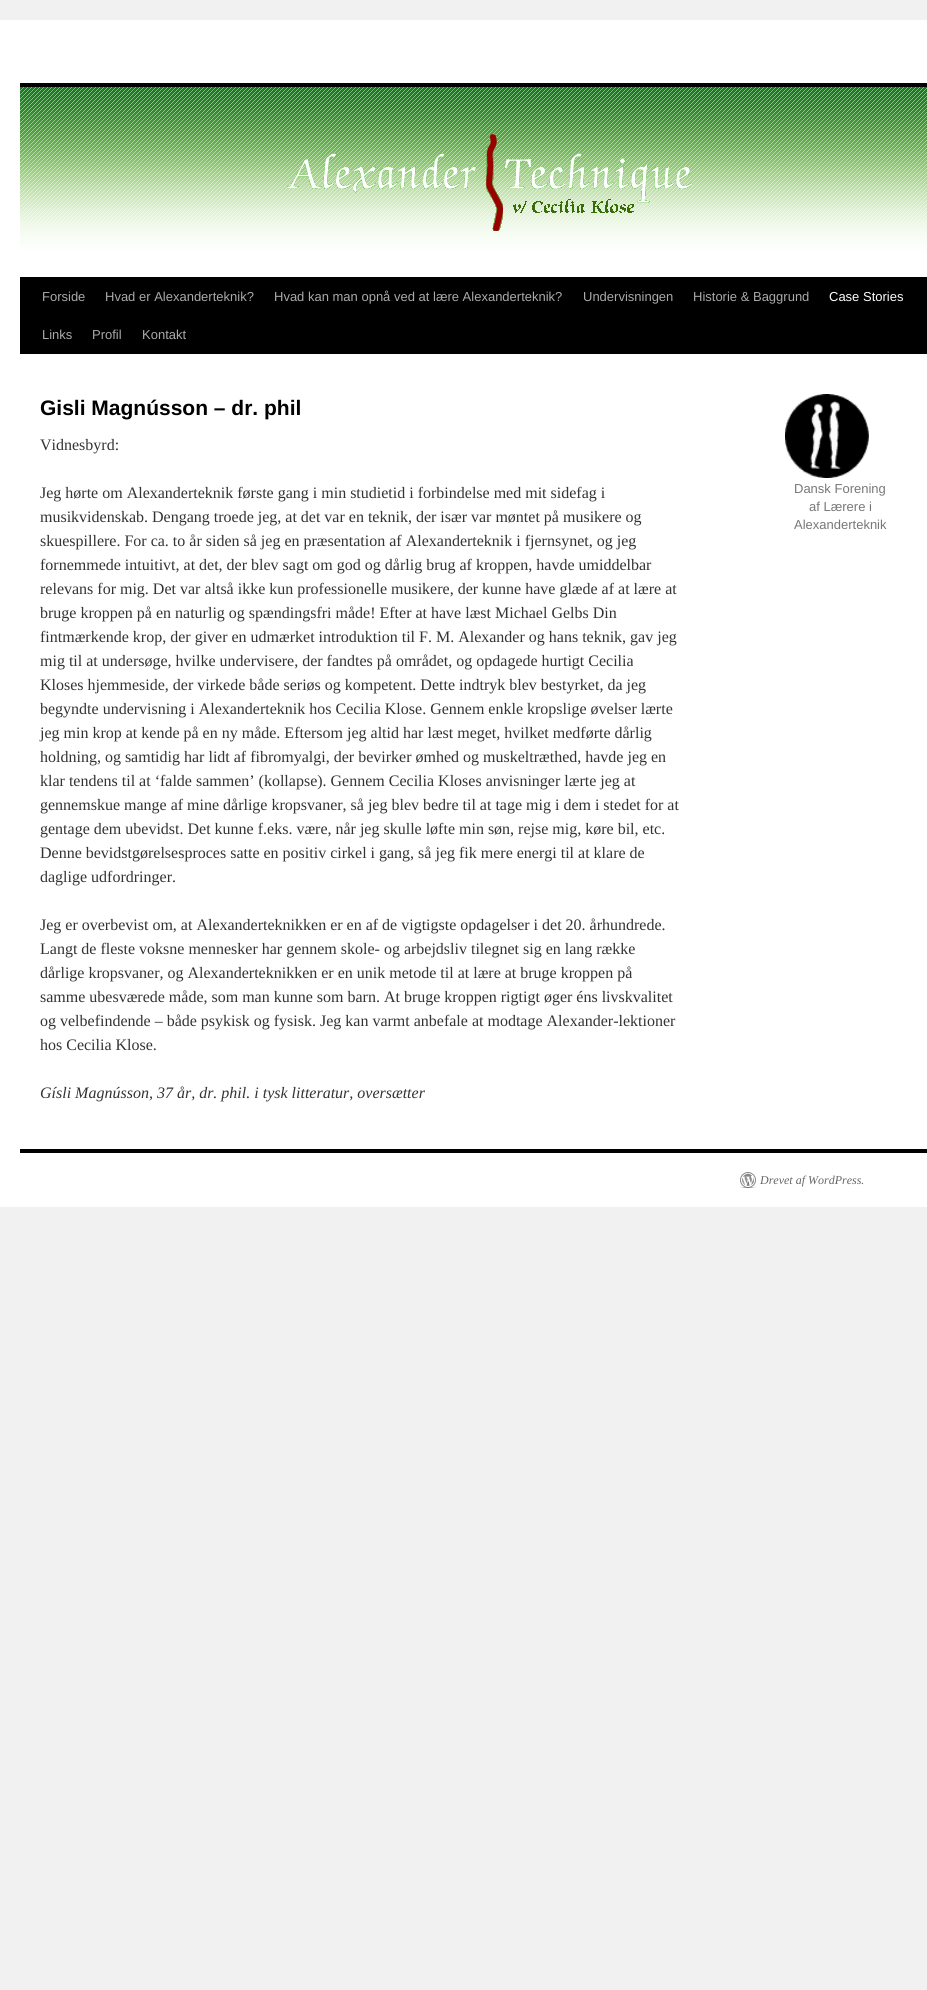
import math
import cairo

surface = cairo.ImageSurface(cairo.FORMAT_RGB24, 927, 1990)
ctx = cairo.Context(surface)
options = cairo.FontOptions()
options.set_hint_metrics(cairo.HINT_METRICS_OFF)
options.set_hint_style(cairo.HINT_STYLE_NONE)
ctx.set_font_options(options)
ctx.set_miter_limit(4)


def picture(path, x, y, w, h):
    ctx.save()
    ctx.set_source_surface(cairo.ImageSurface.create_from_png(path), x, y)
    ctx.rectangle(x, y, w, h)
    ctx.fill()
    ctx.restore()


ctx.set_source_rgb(0.945, 0.945, 0.945)
ctx.paint()
ctx.set_source_rgb(1, 1, 1)
ctx.rectangle(0, 20, 927, 1187)
ctx.fill()
ctx.set_source_rgb(0, 0, 0)
ctx.rectangle(20, 83, 907, 4)
ctx.fill()
ctx.rectangle(20, 277, 907, 77)
ctx.fill()
picture("img1.png", 20, 87, 907, 162)
ctx.select_font_face("Liberation Sans")
ctx.set_font_size(13)
ctx.set_source_rgb(0.667, 0.667, 0.667)
ctx.move_to(42, 301)
ctx.show_text("Forside")
ctx.move_to(105, 301)
ctx.show_text("Hvad er Alexanderteknik?")
ctx.move_to(274, 301)
ctx.show_text("Hvad kan man opnå ved at lære Alexanderteknik?")
ctx.move_to(583, 301)
ctx.show_text("Undervisningen")
ctx.move_to(693, 301)
ctx.show_text("Historie & Baggrund")
ctx.set_source_rgb(1, 1, 1)
ctx.move_to(829, 301)
ctx.show_text("Case Stories")
ctx.set_source_rgb(0.667, 0.667, 0.667)
ctx.move_to(42, 339)
ctx.show_text("Links")
ctx.move_to(92, 339)
ctx.show_text("Profil")
ctx.move_to(142, 339)
ctx.show_text("Kontakt")
ctx.select_font_face("Liberation Sans", cairo.FONT_SLANT_NORMAL, cairo.FONT_WEIGHT_BOLD)
ctx.set_font_size(21)
ctx.set_source_rgb(0, 0, 0)
ctx.move_to(40, 415)
ctx.show_text("Gisli Magnússon – dr. phil")
ctx.select_font_face("Liberation Serif")
ctx.set_font_size(16)
ctx.set_source_rgb(0.2, 0.2, 0.2)
ctx.move_to(40, 450)
ctx.show_text("Vidnesbyrd:")
ctx.move_to(40, 498)
ctx.show_text("Jeg hørte om Alexanderteknik første gang i min studietid i forbindelse med mit sidefag i")
ctx.move_to(40, 522)
ctx.show_text("musikvidenskab. Dengang troede jeg, at det var en teknik, der især var møntet på musikere og")
ctx.move_to(40, 546)
ctx.show_text("skuespillere. For ca. to år siden så jeg en præsentation af Alexanderteknik i fjernsynet, og jeg")
ctx.move_to(40, 570)
ctx.show_text("fornemmede intuitivt, at det, der blev sagt om god og dårlig brug af kroppen, havde umiddelbar")
ctx.move_to(40, 594)
ctx.show_text("relevans for mig. Det var altså ikke kun professionelle musikere, der kunne have glæde af at lære at")
ctx.move_to(40, 618)
ctx.show_text("bruge kroppen på en naturlig og spændingsfri måde! Efter at have læst Michael Gelbs Din")
ctx.move_to(40, 642)
ctx.show_text("fintmærkende krop, der giver en udmærket introduktion til F. M. Alexander og hans teknik, gav jeg")
ctx.move_to(40, 666)
ctx.show_text("mig til at undersøge, hvilke undervisere, der fandtes på området, og opdagede hurtigt Cecilia")
ctx.move_to(40, 690)
ctx.show_text("Kloses hjemmeside, der virkede både seriøs og kompetent. Dette indtryk blev bestyrket, da jeg")
ctx.move_to(40, 714)
ctx.show_text("begyndte undervisning i Alexanderteknik hos Cecilia Klose. Gennem enkle kropslige øvelser lærte")
ctx.move_to(40, 738)
ctx.show_text("jeg min krop at kende på en ny måde. Eftersom jeg altid har læst meget, hvilket medførte dårlig")
ctx.move_to(40, 762)
ctx.show_text("holdning, og samtidig har lidt af fibromyalgi, der bevirker ømhed og muskeltræthed, havde jeg en")
ctx.move_to(40, 786)
ctx.show_text("klar tendens til at ‘falde sammen’ (kollapse). Gennem Cecilia Kloses anvisninger lærte jeg at")
ctx.move_to(40, 810)
ctx.show_text("gennemskue mange af mine dårlige kropsvaner, så jeg blev bedre til at tage mig i dem i stedet for at")
ctx.move_to(40, 834)
ctx.show_text("gentage dem ubevidst. Det kunne f.eks. være, når jeg skulle løfte min søn, rejse mig, køre bil, etc.")
ctx.move_to(40, 858)
ctx.show_text("Denne bevidstgørelsesproces satte en positiv cirkel i gang, så jeg fik mere energi til at klare de")
ctx.move_to(40, 882)
ctx.show_text("daglige udfordringer.")
ctx.move_to(40, 930)
ctx.show_text("Jeg er overbevist om, at Alexanderteknikken er en af de vigtigste opdagelser i det 20. århundrede.")
ctx.move_to(40, 954)
ctx.show_text("Langt de fleste voksne mennesker har gennem skole- og arbejdsliv tilegnet sig en lang række")
ctx.move_to(40, 978)
ctx.show_text("dårlige kropsvaner, og Alexanderteknikken er en unik metode til at lære at bruge kroppen på")
ctx.move_to(40, 1002)
ctx.show_text("samme ubesværede måde, som man kunne som barn. At bruge kroppen rigtigt øger éns livskvalitet")
ctx.move_to(40, 1026)
ctx.show_text("og velbefindende – både psykisk og fysisk. Jeg kan varmt anbefale at modtage Alexander-lektioner")
ctx.move_to(40, 1050)
ctx.show_text("hos Cecilia Klose.")
ctx.select_font_face("Liberation Serif", cairo.FONT_SLANT_ITALIC)
ctx.move_to(40, 1098)
ctx.show_text("Gísli Magnússon, 37 år, dr. phil. i tysk litteratur, oversætter")
picture("img2.png", 785, 394, 84, 84)
ctx.select_font_face("Liberation Sans")
ctx.set_font_size(13)
ctx.set_source_rgb(0.467, 0.467, 0.467)
ctx.move_to(794, 493)
ctx.show_text("Dansk Forening")
ctx.move_to(809, 511)
ctx.show_text("af Lærere i")
ctx.move_to(794, 529)
ctx.show_text("Alexanderteknik")
ctx.set_source_rgb(0, 0, 0)
ctx.rectangle(20, 1149, 907, 4)
ctx.fill()
picture("img3.png", 740, 1172, 16, 16)
ctx.select_font_face("Liberation Serif", cairo.FONT_SLANT_ITALIC)
ctx.set_font_size(12)
ctx.set_source_rgb(0.4, 0.4, 0.4)
ctx.move_to(760, 1184)
ctx.show_text("Drevet af WordPress.")
surface.write_to_png("page.png")
